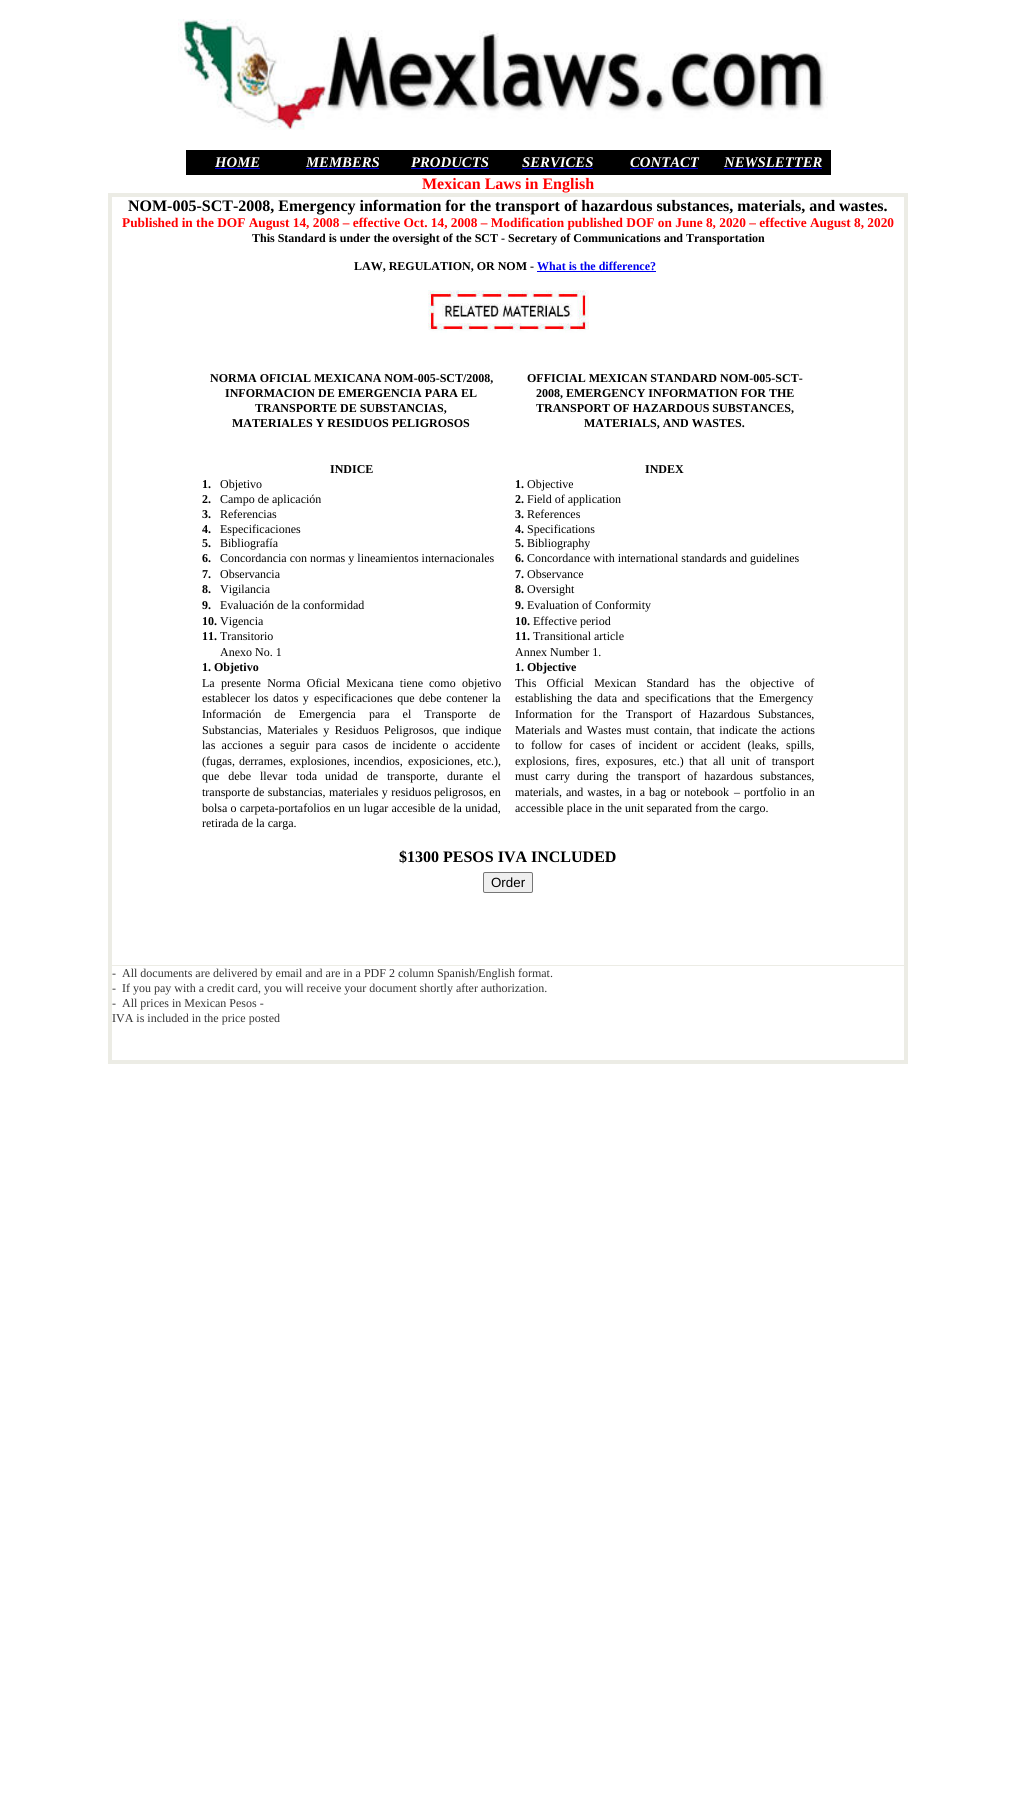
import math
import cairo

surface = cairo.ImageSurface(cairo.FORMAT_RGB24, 1016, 1809)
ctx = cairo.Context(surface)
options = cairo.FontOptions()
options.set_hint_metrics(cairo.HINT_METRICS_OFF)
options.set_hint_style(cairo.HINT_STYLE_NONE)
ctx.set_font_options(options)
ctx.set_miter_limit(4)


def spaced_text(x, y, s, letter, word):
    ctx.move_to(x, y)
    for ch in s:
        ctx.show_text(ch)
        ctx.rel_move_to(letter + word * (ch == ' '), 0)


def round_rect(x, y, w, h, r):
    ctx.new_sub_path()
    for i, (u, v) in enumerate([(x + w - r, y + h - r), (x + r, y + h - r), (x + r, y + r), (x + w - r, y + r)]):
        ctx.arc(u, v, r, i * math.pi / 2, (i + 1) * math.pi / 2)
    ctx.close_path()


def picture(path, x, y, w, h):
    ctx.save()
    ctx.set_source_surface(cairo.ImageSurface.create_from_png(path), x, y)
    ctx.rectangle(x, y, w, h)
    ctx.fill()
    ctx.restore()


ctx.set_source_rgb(1, 1, 1)
ctx.paint()
picture("img1.png", 178, 19, 650, 111)
ctx.set_source_rgb(0, 0, 0)
ctx.rectangle(186, 150, 645, 25)
ctx.fill()
ctx.select_font_face("Liberation Serif", cairo.FONT_SLANT_ITALIC, cairo.FONT_WEIGHT_BOLD)
ctx.set_font_size(14.75)
ctx.set_source_rgb(1, 1, 1)
ctx.move_to(215, 167)
ctx.show_text("HOME")
ctx.set_source_rgb(0, 0, 0.933)
ctx.rectangle(215, 168, 45, 1)
ctx.fill()
ctx.set_source_rgb(1, 1, 1)
ctx.move_to(306, 167)
ctx.show_text("MEMBERS")
ctx.set_source_rgb(0, 0, 0.933)
ctx.rectangle(306, 168, 73, 1)
ctx.fill()
ctx.set_source_rgb(1, 1, 1)
ctx.move_to(411, 167)
ctx.show_text("PRODUCTS")
ctx.set_source_rgb(0, 0, 0.933)
ctx.rectangle(411, 168, 78, 1)
ctx.fill()
ctx.set_source_rgb(1, 1, 1)
ctx.move_to(522, 167)
ctx.show_text("SERVICES")
ctx.set_source_rgb(0, 0, 0.933)
ctx.rectangle(522, 168, 71, 1)
ctx.fill()
ctx.set_source_rgb(1, 1, 1)
ctx.move_to(630, 167)
ctx.show_text("CONTACT")
ctx.set_source_rgb(0, 0, 0.933)
ctx.rectangle(630, 168, 68, 1)
ctx.fill()
ctx.set_source_rgb(1, 1, 1)
ctx.move_to(724, 167)
ctx.show_text("NEWSLETTER")
ctx.set_source_rgb(0, 0, 0.933)
ctx.rectangle(724, 168, 98, 1)
ctx.fill()
ctx.select_font_face("Liberation Serif", cairo.FONT_SLANT_NORMAL, cairo.FONT_WEIGHT_BOLD)
ctx.set_font_size(16)
ctx.set_source_rgb(1, 0, 0)
ctx.move_to(422, 189)
ctx.show_text("Mexican Laws in English")
ctx.set_source_rgb(0.922, 0.925, 0.898)
ctx.rectangle(108, 193, 800, 4)
ctx.fill()
ctx.rectangle(110, 965, 797, 1)
ctx.fill()
ctx.rectangle(904, 193, 4, 871)
ctx.fill()
ctx.rectangle(108, 1060, 800, 4)
ctx.fill()
ctx.rectangle(108, 193, 4, 871)
ctx.fill()
ctx.set_source_rgb(0, 0, 0)
ctx.move_to(128, 211)
ctx.show_text("NOM-005-SCT-2008, Emergency information for the transport of hazardous substances, materials, and wastes.")
ctx.set_font_size(13.33)
ctx.set_source_rgb(1, 0, 0)
ctx.move_to(122, 227)
ctx.show_text("Published in the DOF August 14, 2008 – effective Oct. 14, 2008 – Modification published DOF on June 8, 2020 – effective August 8, 2020")
ctx.set_font_size(12)
ctx.set_source_rgb(0, 0, 0)
ctx.move_to(252, 242)
ctx.show_text("This Standard is under the oversight of the SCT - Secretary of Communications and Transportation")
ctx.move_to(354, 270)
ctx.show_text("LAW, REGULATION, OR NOM -")
ctx.set_source_rgb(0, 0, 0.933)
ctx.move_to(537, 270)
ctx.show_text("What is the difference?")
ctx.rectangle(537, 271, 119, 1)
ctx.fill()
picture("img2.png", 428, 290, 161, 43)
ctx.set_source_rgb(0, 0, 0)
ctx.move_to(210, 382)
ctx.show_text("NORMA OFICIAL MEXICANA NOM-005-SCT/2008,")
ctx.move_to(225, 397)
ctx.show_text("INFORMACION DE EMERGENCIA PARA EL")
ctx.move_to(255, 412)
ctx.show_text("TRANSPORTE DE SUBSTANCIAS,")
ctx.move_to(232, 427)
ctx.show_text("MATERIALES Y RESIDUOS PELIGROSOS")
ctx.move_to(527, 382)
ctx.show_text("OFFICIAL MEXICAN STANDARD NOM-005-SCT-")
ctx.move_to(536, 397)
ctx.show_text("2008, EMERGENCY INFORMATION FOR THE")
ctx.move_to(536, 412)
ctx.show_text("TRANSPORT OF HAZARDOUS SUBSTANCES,")
ctx.move_to(584, 427)
ctx.show_text("MATERIALS, AND WASTES.")
ctx.move_to(330, 473)
ctx.show_text("INDICE")
ctx.move_to(645, 473)
ctx.show_text("INDEX")
ctx.move_to(202, 488)
ctx.show_text("1.")
ctx.select_font_face("Liberation Serif")
ctx.move_to(220, 488)
ctx.show_text("Objetivo")
ctx.select_font_face("Liberation Serif", cairo.FONT_SLANT_NORMAL, cairo.FONT_WEIGHT_BOLD)
ctx.move_to(515, 488)
ctx.show_text("1.")
ctx.select_font_face("Liberation Serif")
ctx.move_to(527, 488)
ctx.show_text("Objective")
ctx.select_font_face("Liberation Serif", cairo.FONT_SLANT_NORMAL, cairo.FONT_WEIGHT_BOLD)
ctx.move_to(202, 503)
ctx.show_text("2.")
ctx.select_font_face("Liberation Serif")
ctx.move_to(220, 503)
ctx.show_text("Campo de aplicación")
ctx.select_font_face("Liberation Serif", cairo.FONT_SLANT_NORMAL, cairo.FONT_WEIGHT_BOLD)
ctx.move_to(515, 503)
ctx.show_text("2.")
ctx.select_font_face("Liberation Serif")
ctx.move_to(527, 503)
ctx.show_text("Field of application")
ctx.select_font_face("Liberation Serif", cairo.FONT_SLANT_NORMAL, cairo.FONT_WEIGHT_BOLD)
ctx.move_to(202, 518)
ctx.show_text("3.")
ctx.select_font_face("Liberation Serif")
ctx.move_to(220, 518)
ctx.show_text("Referencias")
ctx.select_font_face("Liberation Serif", cairo.FONT_SLANT_NORMAL, cairo.FONT_WEIGHT_BOLD)
ctx.move_to(515, 518)
ctx.show_text("3.")
ctx.select_font_face("Liberation Serif")
ctx.move_to(527, 518)
ctx.show_text("References")
ctx.select_font_face("Liberation Serif", cairo.FONT_SLANT_NORMAL, cairo.FONT_WEIGHT_BOLD)
ctx.move_to(202, 533)
ctx.show_text("4.")
ctx.select_font_face("Liberation Serif")
ctx.move_to(220, 533)
ctx.show_text("Especificaciones")
ctx.select_font_face("Liberation Serif", cairo.FONT_SLANT_NORMAL, cairo.FONT_WEIGHT_BOLD)
ctx.move_to(515, 533)
ctx.show_text("4.")
ctx.select_font_face("Liberation Serif")
ctx.move_to(527, 533)
ctx.show_text("Specifications")
ctx.select_font_face("Liberation Serif", cairo.FONT_SLANT_NORMAL, cairo.FONT_WEIGHT_BOLD)
ctx.move_to(202, 547)
ctx.show_text("5.")
ctx.select_font_face("Liberation Serif")
ctx.move_to(220, 547)
ctx.show_text("Bibliografía")
ctx.select_font_face("Liberation Serif", cairo.FONT_SLANT_NORMAL, cairo.FONT_WEIGHT_BOLD)
ctx.move_to(515, 547)
ctx.show_text("5.")
ctx.select_font_face("Liberation Serif")
ctx.move_to(527, 547)
ctx.show_text("Bibliography")
ctx.select_font_face("Liberation Serif", cairo.FONT_SLANT_NORMAL, cairo.FONT_WEIGHT_BOLD)
ctx.move_to(202, 562)
ctx.show_text("6.")
ctx.select_font_face("Liberation Serif")
ctx.move_to(220, 562)
ctx.show_text("Concordancia con normas y lineamientos internacionales")
ctx.select_font_face("Liberation Serif", cairo.FONT_SLANT_NORMAL, cairo.FONT_WEIGHT_BOLD)
ctx.move_to(515, 562)
ctx.show_text("6.")
ctx.select_font_face("Liberation Serif")
ctx.move_to(527, 562)
ctx.show_text("Concordance with international standards and guidelines")
ctx.select_font_face("Liberation Serif", cairo.FONT_SLANT_NORMAL, cairo.FONT_WEIGHT_BOLD)
ctx.move_to(202, 578)
ctx.show_text("7.")
ctx.select_font_face("Liberation Serif")
ctx.move_to(220, 578)
ctx.show_text("Observancia")
ctx.select_font_face("Liberation Serif", cairo.FONT_SLANT_NORMAL, cairo.FONT_WEIGHT_BOLD)
ctx.move_to(515, 578)
ctx.show_text("7.")
ctx.select_font_face("Liberation Serif")
ctx.move_to(527, 578)
ctx.show_text("Observance")
ctx.select_font_face("Liberation Serif", cairo.FONT_SLANT_NORMAL, cairo.FONT_WEIGHT_BOLD)
ctx.move_to(202, 593)
ctx.show_text("8.")
ctx.select_font_face("Liberation Serif")
ctx.move_to(220, 593)
ctx.show_text("Vigilancia")
ctx.select_font_face("Liberation Serif", cairo.FONT_SLANT_NORMAL, cairo.FONT_WEIGHT_BOLD)
ctx.move_to(515, 593)
ctx.show_text("8.")
ctx.select_font_face("Liberation Serif")
ctx.move_to(527, 593)
ctx.show_text("Oversight")
ctx.select_font_face("Liberation Serif", cairo.FONT_SLANT_NORMAL, cairo.FONT_WEIGHT_BOLD)
ctx.move_to(202, 609)
ctx.show_text("9.")
ctx.select_font_face("Liberation Serif")
ctx.move_to(220, 609)
ctx.show_text("Evaluación de la conformidad")
ctx.select_font_face("Liberation Serif", cairo.FONT_SLANT_NORMAL, cairo.FONT_WEIGHT_BOLD)
ctx.move_to(515, 609)
ctx.show_text("9.")
ctx.select_font_face("Liberation Serif")
ctx.move_to(527, 609)
ctx.show_text("Evaluation of Conformity")
ctx.select_font_face("Liberation Serif", cairo.FONT_SLANT_NORMAL, cairo.FONT_WEIGHT_BOLD)
ctx.move_to(202, 625)
ctx.show_text("10.")
ctx.select_font_face("Liberation Serif")
ctx.move_to(220, 625)
ctx.show_text("Vigencia")
ctx.select_font_face("Liberation Serif", cairo.FONT_SLANT_NORMAL, cairo.FONT_WEIGHT_BOLD)
ctx.move_to(515, 625)
ctx.show_text("10.")
ctx.select_font_face("Liberation Serif")
ctx.move_to(533, 625)
ctx.show_text("Effective period")
ctx.select_font_face("Liberation Serif", cairo.FONT_SLANT_NORMAL, cairo.FONT_WEIGHT_BOLD)
ctx.move_to(202, 640)
ctx.show_text("11.")
ctx.select_font_face("Liberation Serif")
ctx.move_to(220, 640)
ctx.show_text("Transitorio")
ctx.select_font_face("Liberation Serif", cairo.FONT_SLANT_NORMAL, cairo.FONT_WEIGHT_BOLD)
ctx.move_to(515, 640)
ctx.show_text("11.")
ctx.select_font_face("Liberation Serif")
ctx.move_to(533, 640)
ctx.show_text("Transitional article")
ctx.move_to(220, 656)
ctx.show_text("Anexo No. 1")
ctx.move_to(515, 656)
ctx.show_text("Annex Number 1.")
ctx.select_font_face("Liberation Serif", cairo.FONT_SLANT_NORMAL, cairo.FONT_WEIGHT_BOLD)
ctx.move_to(202, 671)
ctx.show_text("1. Objetivo")
ctx.move_to(515, 671)
ctx.show_text("1. Objective")
ctx.select_font_face("Liberation Serif")
spaced_text(202, 687, "La presente Norma Oficial Mexicana tiene", 0, 3.25)
spaced_text(429, 687, "como objetivo", 0, 3.25)
spaced_text(202, 702, "establecer los datos y", 0, 1.5)
spaced_text(314, 702, "especificaciones que debe contener la", 0, 1.5)
spaced_text(202, 718, "Información de Emergencia para el Transporte", 0, 10)
ctx.move_to(489, 718)
ctx.show_text("de")
spaced_text(202, 734, "Substancias, Materiales y Residuos", 0, 2.5)
spaced_text(384, 734, "Peligrosos, que indique", 0, 2.5)
spaced_text(202, 749, "las acciones a", 0, 3.25)
spaced_text(280, 749, "seguir para casos de incidente o accidente", 0, 3.25)
spaced_text(202, 765, "(fugas, derrames, explosiones, incendios,", 0, 1)
spaced_text(408, 765, "exposiciones, etc.),", 0, 1)
spaced_text(202, 780, "que debe llevar toda", 0, 6)
spaced_text(325, 780, "unidad de transporte, durante el", 0, 6)
ctx.move_to(202, 796)
ctx.show_text("transporte")
spaced_text(253, 796, "de substancias, materiales y residuos", 0, 0.5)
ctx.move_to(434, 796)
ctx.show_text("peligrosos, en")
spaced_text(202, 812, "bolsa o carpeta-portafolios en un lugar accesible de la unidad,", 0, 0.25)
ctx.move_to(202, 827)
ctx.show_text("retirada de la carga.")
spaced_text(515, 687, "This Official Mexican Standard has the", 0, 7.25)
spaced_text(750, 687, "objective of", 0, 7.25)
spaced_text(515, 702, "establishing the data and", 0, 2)
spaced_text(645, 702, "specifications that the Emergency", 0, 2)
spaced_text(515, 718, "Information for the Transport of Hazardous", 0, 5.25)
ctx.move_to(758, 718)
ctx.show_text("Substances,")
spaced_text(515, 734, "Materials and Wastes must", 0, 1.5)
spaced_text(654, 734, "contain, that indicate the actions", 0, 1.5)
spaced_text(515, 749, "to follow", 0, 3.75)
spaced_text(569, 749, "for cases of incident or accident (leaks,", 0, 3.75)
ctx.move_to(786, 749)
ctx.show_text("spills,")
spaced_text(515, 765, "explosions, fires, exposures, etc.)", 0, 3)
spaced_text(689, 765, "that all unit of transport", 0, 3)
spaced_text(515, 780, "must carry during", 0, 4)
spaced_text(616, 780, "the transport of hazardous substances,", 0, 4)
spaced_text(515, 796, "materials, and wastes, in a bag or notebook", 0, 1)
spaced_text(734, 796, "– portfolio in an", 0, 1)
ctx.move_to(515, 812)
ctx.show_text("accessible place in the unit separated from the cargo.")
ctx.select_font_face("Liberation Serif", cairo.FONT_SLANT_NORMAL, cairo.FONT_WEIGHT_BOLD)
ctx.set_font_size(16)
ctx.move_to(399, 862)
ctx.show_text("$1300 PESOS IVA INCLUDED")
ctx.set_source_rgb(0.937, 0.937, 0.937)
round_rect(483.5, 872.5, 49, 20, 1.5)
ctx.fill_preserve()
ctx.set_source_rgb(0.463, 0.463, 0.463)
ctx.set_line_width(1)
ctx.stroke()
ctx.select_font_face("Liberation Sans")
ctx.set_font_size(13.33)
ctx.set_source_rgb(0, 0, 0)
ctx.move_to(491, 887)
ctx.show_text("Order")
ctx.select_font_face("Liberation Serif")
ctx.set_font_size(12)
ctx.set_source_rgb(0.2, 0.2, 0.2)
ctx.move_to(112, 977)
ctx.show_text("-  All documents are delivered by email and are in a PDF 2 column Spanish/English format.")
ctx.move_to(112, 992)
ctx.show_text("-  If you pay with a credit card, you will receive your document shortly after authorization.")
ctx.move_to(112, 1007)
ctx.show_text("-  All prices in Mexican Pesos -")
ctx.move_to(112, 1022)
ctx.show_text("IVA is included in the price posted")
surface.write_to_png("page.png")
